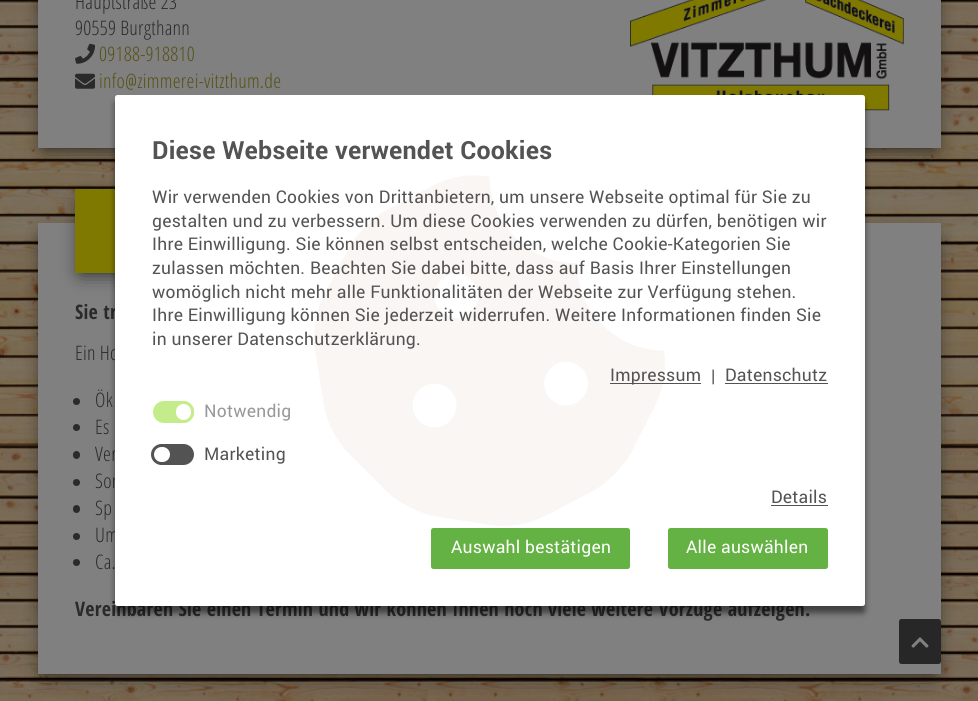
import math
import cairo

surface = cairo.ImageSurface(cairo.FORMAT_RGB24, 978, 701)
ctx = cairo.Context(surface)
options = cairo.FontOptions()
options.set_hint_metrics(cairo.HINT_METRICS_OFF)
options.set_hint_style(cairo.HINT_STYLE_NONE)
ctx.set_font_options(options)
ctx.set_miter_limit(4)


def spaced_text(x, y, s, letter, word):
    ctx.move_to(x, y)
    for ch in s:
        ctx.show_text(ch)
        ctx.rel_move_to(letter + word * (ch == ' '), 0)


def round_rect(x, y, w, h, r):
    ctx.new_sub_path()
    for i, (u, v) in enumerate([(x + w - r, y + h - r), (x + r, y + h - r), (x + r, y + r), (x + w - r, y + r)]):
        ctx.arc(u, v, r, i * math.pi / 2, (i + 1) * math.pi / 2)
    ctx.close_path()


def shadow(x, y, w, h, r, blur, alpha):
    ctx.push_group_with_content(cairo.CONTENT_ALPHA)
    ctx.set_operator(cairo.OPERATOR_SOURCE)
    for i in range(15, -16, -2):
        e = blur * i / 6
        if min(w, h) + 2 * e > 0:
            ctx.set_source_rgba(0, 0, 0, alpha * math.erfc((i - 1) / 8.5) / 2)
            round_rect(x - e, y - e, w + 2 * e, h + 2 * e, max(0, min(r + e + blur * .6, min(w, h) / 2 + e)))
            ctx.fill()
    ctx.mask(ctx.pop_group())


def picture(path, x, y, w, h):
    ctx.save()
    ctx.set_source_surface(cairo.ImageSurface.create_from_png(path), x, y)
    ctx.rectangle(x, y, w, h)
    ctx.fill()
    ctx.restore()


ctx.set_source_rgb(1, 1, 1)
ctx.paint()
picture("img1.png", 0, 0, 978, 701)
ctx.set_source_rgb(0, 0, 0)
shadow(44, -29, 891, 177, 0, 9.5, 0.75)
ctx.set_source_rgb(0.502, 0.502, 0.502)
ctx.rectangle(38, 0, 903, 148)
ctx.fill()
ctx.select_font_face("Open Sans Light")
ctx.set_font_size(20)
ctx.set_source_rgb(0.165, 0.165, 0.165)
spaced_text(75, 9, "Hauptstraße 23", 0.25, 0)
spaced_text(75, 35, "90559 Burgthann", 0.25, 0)
picture("img2.png", 75, 43, 20, 21)
ctx.set_source_rgb(0.333, 0.318, 0.082)
spaced_text(99, 61, "09188-918810", 0.25, 0)
picture("img3.png", 75, 73, 20, 16)
spaced_text(99, 88, "info@zimmerei-vitzthum.de", 0.25, 0)
picture("img4.png", 630, 0, 274, 111)
ctx.set_source_rgb(0, 0, 0)
shadow(44, 235, 891, 439, 0, 9.5, 0.75)
ctx.set_source_rgb(0.502, 0.502, 0.502)
ctx.rectangle(38, 223, 903, 451)
ctx.fill()
ctx.set_source_rgb(0, 0, 0)
shadow(81, 201, 218, 72, 0, 9.5, 0.75)
ctx.set_source_rgb(0.502, 0.475, 0.004)
ctx.rectangle(75, 189, 40, 84)
ctx.fill()
ctx.select_font_face("Open Sans Condensed", cairo.FONT_SLANT_NORMAL, cairo.FONT_WEIGHT_BOLD)
ctx.set_source_rgb(0.165, 0.165, 0.165)
spaced_text(75, 319, "Sie tr", 0.25, 0)
ctx.select_font_face("Open Sans Light")
spaced_text(75, 360, "Ein Ho", 0.25, 0)
ctx.new_path()
ctx.arc(76.5, 401.5, 3.5, 0, 2 * math.pi)
ctx.fill()
spaced_text(95, 407, "Ök", 0.25, 0)
ctx.new_path()
ctx.arc(76.5, 427.5, 3.5, 0, 2 * math.pi)
ctx.fill()
spaced_text(95, 434, "Es", 0.25, 0)
round_rect(73, 451, 7, 8, 3.5)
ctx.fill()
spaced_text(95, 461, "Ver", 0.25, 0)
ctx.new_path()
ctx.arc(76.5, 482.5, 3.5, 0, 2 * math.pi)
ctx.fill()
spaced_text(95, 488, "Sor", 0.25, 0)
round_rect(73, 505, 7, 8, 3.5)
ctx.fill()
spaced_text(95, 515, "Sp", 0.25, 0)
ctx.new_path()
ctx.arc(76.5, 536.5, 3.5, 0, 2 * math.pi)
ctx.fill()
spaced_text(95, 542, "Um", 0.25, 0)
ctx.new_path()
ctx.arc(76.5, 562.5, 3.5, 0, 2 * math.pi)
ctx.fill()
spaced_text(95, 569, "Ca.", 0.25, 0)
ctx.select_font_face("Open Sans Condensed", cairo.FONT_SLANT_NORMAL, cairo.FONT_WEIGHT_BOLD)
spaced_text(75, 616, "Vereinbaren Sie einen Termin und wir können Ihnen noch viele weitere Vorzüge aufzeigen.", 0.25, 0)
ctx.set_source_rgb(0, 0, 0)
shadow(115, 101, 750, 512, 2.5, 3, 0.5)
ctx.set_source_rgb(1, 1, 1)
round_rect(115, 95, 750, 511, 2.5)
ctx.fill()
ctx.select_font_face("Roboto", cairo.FONT_SLANT_NORMAL, cairo.FONT_WEIGHT_BOLD)
ctx.set_font_size(25)
ctx.set_source_rgb(0.325, 0.325, 0.325)
spaced_text(152, 159, "Diese Webseite verwendet Cookies", 0.25, 0)
picture("img5.png", 314, 175, 351, 351)
ctx.select_font_face("Roboto")
ctx.set_font_size(17.5)
spaced_text(152, 203, "Wir verwenden Cookies von Drittanbietern, um unsere Webseite optimal für Sie zu", 0.25, 0)
spaced_text(152, 227, "gestalten und zu verbessern. Um diese Cookies verwenden zu dürfen, benötigen wir", 0.25, 0)
spaced_text(152, 250, "Ihre Einwilligung. Sie können selbst entscheiden, welche Cookie-Kategorien Sie", 0.25, 0)
spaced_text(152, 274, "zulassen möchten. Beachten Sie dabei bitte, dass auf Basis Ihrer Einstellungen", 0.25, 0)
spaced_text(152, 298, "womöglich nicht mehr alle Funktionalitäten der Webseite zur Verfügung stehen.", 0.25, 0)
spaced_text(152, 321, "Ihre Einwilligung können Sie jederzeit widerrufen. Weitere Informationen finden Sie", 0.25, 0)
spaced_text(152, 345, "in unserer Datenschutzerklärung.", 0.25, 0)
ctx.rectangle(610, 383, 91, 1)
ctx.fill()
spaced_text(610, 381, "Impressum", 0.25, 0)
spaced_text(711, 382, "|", 0.25, 0)
spaced_text(725, 381, "Datenschutz", 0.25, 0)
ctx.rectangle(725, 383, 103, 1)
ctx.fill()
ctx.set_source_rgb(0.773, 0.922, 0.541)
round_rect(153, 401, 41, 22, 11)
ctx.fill()
ctx.set_source_rgb(1, 1, 1)
round_rect(174.5, 402.5, 18, 19, 9)
ctx.fill_preserve()
ctx.set_source_rgb(0.773, 0.922, 0.541)
ctx.set_line_width(3)
ctx.stroke()
ctx.set_source_rgb(0.596, 0.596, 0.596)
spaced_text(204, 417, "Notwendig", 0.25, 0)
ctx.set_source_rgb(0.325, 0.325, 0.325)
round_rect(153, 444, 41, 21, 10.5)
ctx.fill()
ctx.set_source_rgb(1, 1, 1)
round_rect(152.5, 445.5, 19, 18, 9)
ctx.fill_preserve()
ctx.set_source_rgb(0.325, 0.325, 0.325)
ctx.stroke()
spaced_text(204, 460, "Marketing", 0.25, 0)
spaced_text(771, 503, "Details", 0.25, 0)
ctx.rectangle(771, 505, 57, 1)
ctx.fill()
ctx.set_source_rgb(0.392, 0.698, 0.263)
round_rect(431, 528, 199, 41, 2.5)
ctx.fill()
ctx.set_source_rgb(1, 1, 1)
spaced_text(451, 553, "Auswahl bestätigen", 0.25, 0)
ctx.set_source_rgb(0.392, 0.698, 0.263)
round_rect(668, 528, 160, 41, 2.5)
ctx.fill()
ctx.set_source_rgb(1, 1, 1)
spaced_text(686, 553, "Alle auswählen", 0.25, 0)
ctx.set_source_rgb(0.153, 0.153, 0.153)
round_rect(899, 619, 42, 45, 2.5)
ctx.fill()
picture("img6.png", 911, 637, 18, 11)
surface.write_to_png("page.png")
